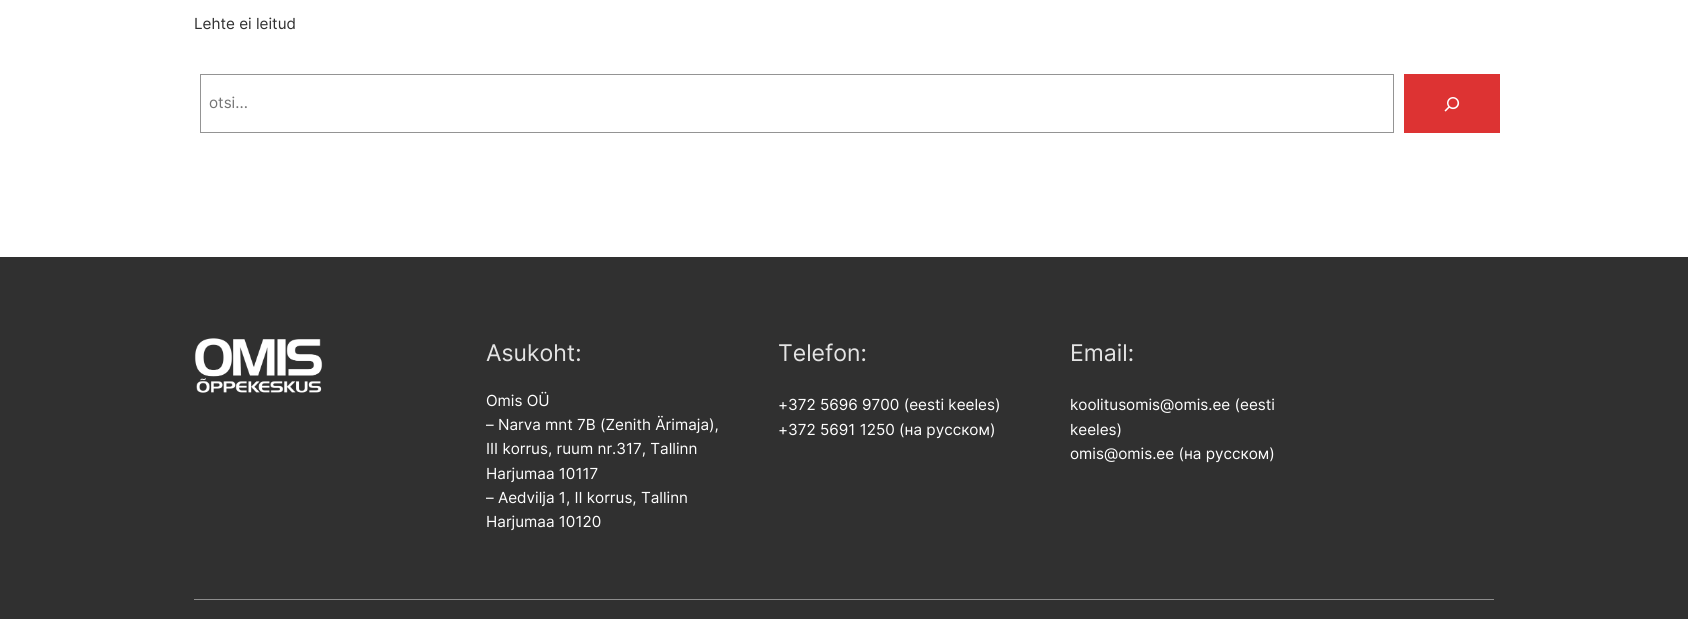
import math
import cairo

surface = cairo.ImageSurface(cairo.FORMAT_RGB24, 1688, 619)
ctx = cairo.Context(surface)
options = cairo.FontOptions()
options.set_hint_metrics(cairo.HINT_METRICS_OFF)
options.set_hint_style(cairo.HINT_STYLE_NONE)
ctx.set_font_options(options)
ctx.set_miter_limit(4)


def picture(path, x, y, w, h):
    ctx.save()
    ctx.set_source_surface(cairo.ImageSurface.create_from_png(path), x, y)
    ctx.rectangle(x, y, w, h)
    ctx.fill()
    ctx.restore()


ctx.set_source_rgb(1, 1, 1)
ctx.paint()
ctx.select_font_face("Inter")
ctx.set_font_size(15.25)
ctx.set_source_rgb(0.188, 0.188, 0.188)
ctx.move_to(194, 29)
ctx.show_text("Lehte ei leitud")
ctx.rectangle(200.5, 74.5, 1193, 58)
ctx.set_source_rgb(0.58, 0.58, 0.58)
ctx.set_line_width(1)
ctx.stroke()
ctx.set_source_rgb(0.459, 0.459, 0.459)
ctx.move_to(209, 108)
ctx.show_text("otsi...")
ctx.set_source_rgb(0.867, 0.2, 0.2)
ctx.rectangle(1404, 74, 96, 59)
ctx.fill()
picture("img1.png", 1444, 97, 16, 15)
ctx.set_source_rgb(0.188, 0.188, 0.188)
ctx.rectangle(0, 257, 1688, 362)
ctx.fill()
picture("img2.png", 194, 338, 129, 55)
ctx.set_font_size(23)
ctx.set_source_rgb(0.894, 0.894, 0.894)
ctx.move_to(486, 361)
ctx.show_text("Asukoht:")
ctx.set_font_size(15.25)
ctx.set_source_rgb(1, 1, 1)
ctx.move_to(486, 406)
ctx.show_text("Omis OÜ")
ctx.move_to(486, 430)
ctx.show_text("– Narva mnt 7B (Zenith Ärimaja),")
ctx.move_to(486, 454)
ctx.show_text("III korrus, ruum nr.317, Tallinn")
ctx.move_to(486, 479)
ctx.show_text("Harjumaa 10117")
ctx.move_to(486, 503)
ctx.show_text("– Aedvilja 1, II korrus, Tallinn")
ctx.move_to(486, 527)
ctx.show_text("Harjumaa 10120")
ctx.set_font_size(23)
ctx.set_source_rgb(0.894, 0.894, 0.894)
ctx.move_to(778, 361)
ctx.show_text("Telefon:")
ctx.set_font_size(15.25)
ctx.set_source_rgb(1, 1, 1)
ctx.move_to(778, 410)
ctx.show_text("+372 5696 9700 (eesti keeles)")
ctx.move_to(778, 435)
ctx.show_text("+372 5691 1250 (на русском)")
ctx.set_font_size(23)
ctx.set_source_rgb(0.894, 0.894, 0.894)
ctx.move_to(1070, 361)
ctx.show_text("Email:")
ctx.set_font_size(15.25)
ctx.set_source_rgb(1, 1, 1)
ctx.move_to(1070, 410)
ctx.show_text("koolitusomis@omis.ee (eesti")
ctx.move_to(1070, 435)
ctx.show_text("keeles)")
ctx.move_to(1070, 459)
ctx.show_text("omis@omis.ee (на русском)")
ctx.set_source_rgb(0.553, 0.553, 0.553)
ctx.rectangle(194, 599, 1300, 1)
ctx.fill()
surface.write_to_png("page.png")
